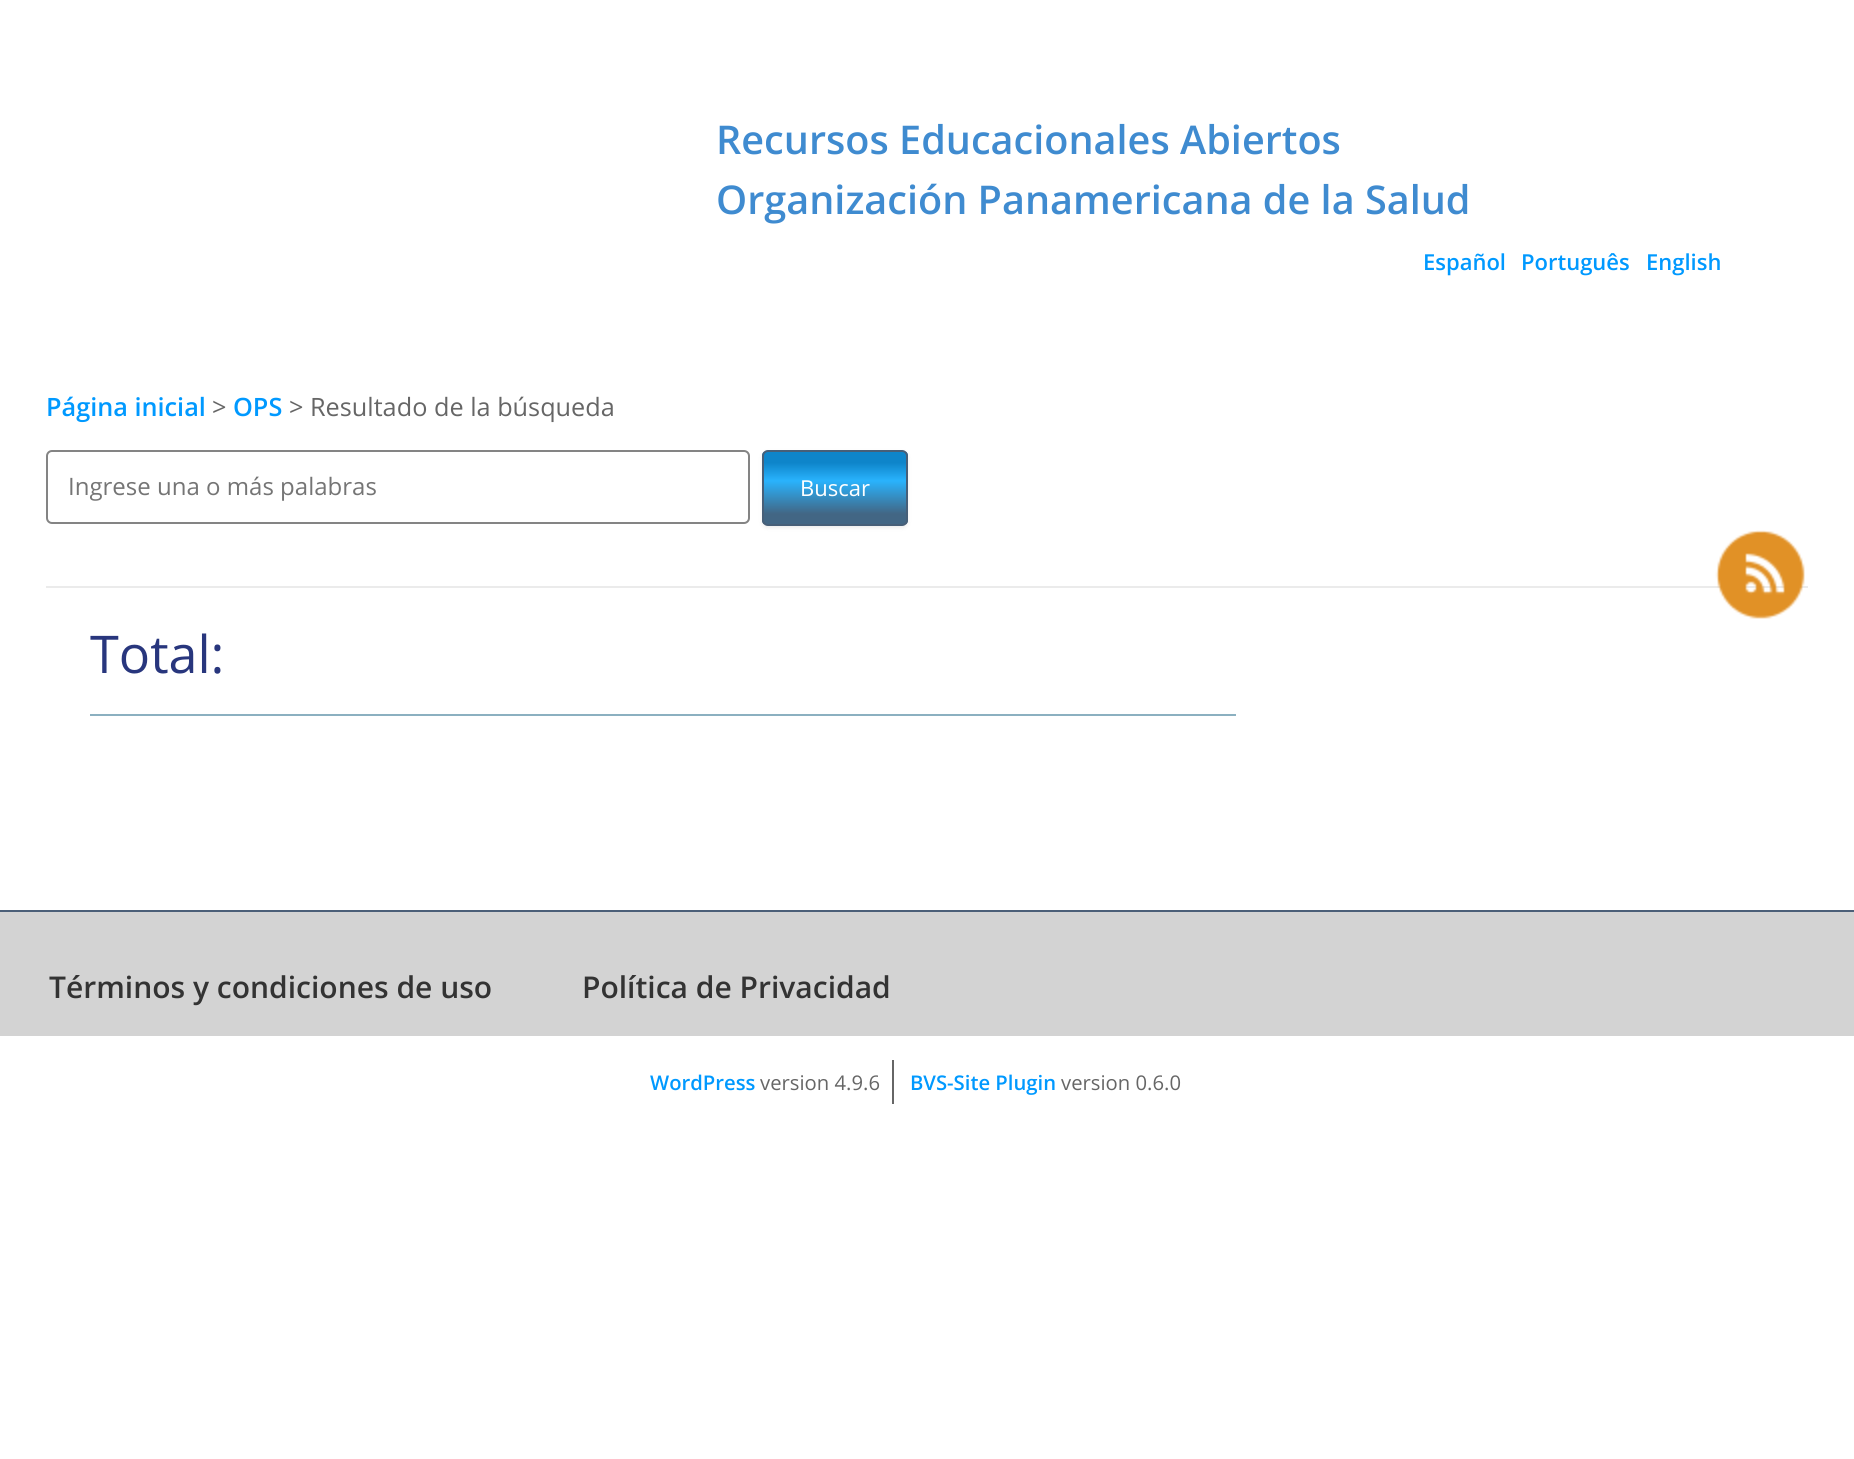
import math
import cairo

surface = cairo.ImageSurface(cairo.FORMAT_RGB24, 1854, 1459)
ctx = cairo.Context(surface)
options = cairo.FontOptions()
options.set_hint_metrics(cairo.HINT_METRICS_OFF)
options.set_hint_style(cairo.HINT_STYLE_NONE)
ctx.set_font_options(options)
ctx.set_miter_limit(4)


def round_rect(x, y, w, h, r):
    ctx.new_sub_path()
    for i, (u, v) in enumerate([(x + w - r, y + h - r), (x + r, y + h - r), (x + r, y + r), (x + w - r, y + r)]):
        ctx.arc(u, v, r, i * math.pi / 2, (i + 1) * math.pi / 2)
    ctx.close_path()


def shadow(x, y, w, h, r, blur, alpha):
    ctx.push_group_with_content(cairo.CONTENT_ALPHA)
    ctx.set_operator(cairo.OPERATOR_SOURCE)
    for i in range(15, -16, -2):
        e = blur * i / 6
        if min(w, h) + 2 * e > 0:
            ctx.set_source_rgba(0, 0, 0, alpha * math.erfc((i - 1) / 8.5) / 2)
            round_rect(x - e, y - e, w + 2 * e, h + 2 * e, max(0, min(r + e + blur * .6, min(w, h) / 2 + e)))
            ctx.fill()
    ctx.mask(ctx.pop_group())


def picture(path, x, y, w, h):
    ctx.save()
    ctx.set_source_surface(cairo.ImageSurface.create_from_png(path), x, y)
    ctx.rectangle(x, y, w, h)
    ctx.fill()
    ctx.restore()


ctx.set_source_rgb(1, 1, 1)
ctx.paint()
ctx.select_font_face("Open Sans SemiBold")
ctx.set_font_size(39.6)
ctx.set_source_rgb(0.247, 0.545, 0.816)
ctx.move_to(716, 154)
ctx.show_text("Recursos Educacionales Abiertos")
ctx.move_to(716, 214)
ctx.show_text("Organización Panamericana de la Salud")
ctx.set_font_size(22)
ctx.set_source_rgb(0, 0.6, 1)
ctx.move_to(1423, 270)
ctx.show_text("Español")
ctx.move_to(1521, 270)
ctx.show_text("Português")
ctx.move_to(1646, 270)
ctx.show_text("English")
ctx.set_font_size(25.25)
ctx.move_to(46, 416)
ctx.show_text("Página inicial")
ctx.select_font_face("Open Sans")
ctx.set_source_rgb(0.4, 0.4, 0.4)
ctx.move_to(212, 416)
ctx.show_text(">")
ctx.select_font_face("Open Sans SemiBold")
ctx.set_source_rgb(0, 0.6, 1)
ctx.move_to(233, 416)
ctx.show_text("OPS")
ctx.select_font_face("Open Sans")
ctx.set_source_rgb(0.4, 0.4, 0.4)
ctx.move_to(289, 416)
ctx.show_text("> Resultado de la búsqueda")
ctx.set_source_rgb(0.918, 0.918, 0.918)
ctx.rectangle(46, 586, 1762, 2)
ctx.fill()
round_rect(47, 451, 702, 72, 5)
ctx.set_source_rgb(0.518, 0.518, 0.518)
ctx.stroke()
ctx.set_font_size(24)
ctx.set_source_rgb(0.459, 0.459, 0.459)
ctx.move_to(68, 495)
ctx.show_text("Ingrese una o más palabras")
ctx.set_source_rgb(0.251, 0.251, 0.251)
shadow(762, 452, 146, 76, 6, 2, 0.1)
ctx.save()
round_rect(762, 450, 146, 76, 6)
ctx.clip()
gradient = cairo.LinearGradient(764, 524, 764, 452)
gradient.add_color_stop_rgba(0.14, 0.259, 0.4, 0.518, 1)
gradient.add_color_stop_rgba(0.6, 0.161, 0.702, 0.992, 1)
gradient.add_color_stop_rgba(0.85, 0.055, 0.522, 0.792, 1)
ctx.set_source(gradient)
ctx.rectangle(762, 452, 146, 72)
ctx.fill()
ctx.restore()
round_rect(763, 451, 144, 74, 5)
ctx.set_source_rgb(0.278, 0.373, 0.471)
ctx.stroke()
ctx.set_font_size(22)
ctx.set_source_rgb(1, 1, 1)
ctx.move_to(800, 496)
ctx.show_text("Buscar")
picture("img1.png", 1715, 530, 90, 89)
ctx.set_source_rgb(0.545, 0.69, 0.753)
ctx.rectangle(90, 714, 1146, 2)
ctx.fill()
ctx.set_font_size(52)
ctx.set_source_rgb(0.157, 0.212, 0.49)
ctx.move_to(90, 673)
ctx.show_text("Total:")
ctx.set_source_rgb(0.827, 0.827, 0.827)
ctx.rectangle(0, 912, 1854, 124)
ctx.fill()
ctx.set_source_rgb(0.294, 0.373, 0.471)
ctx.rectangle(0, 910, 1854, 2)
ctx.fill()
ctx.select_font_face("Open Sans SemiBold")
ctx.set_font_size(30)
ctx.set_source_rgb(0.2, 0.2, 0.2)
ctx.move_to(49, 998)
ctx.show_text("Términos y condiciones de uso")
ctx.move_to(582, 998)
ctx.show_text("Política de Privacidad")
ctx.set_source_rgb(0.4, 0.4, 0.4)
ctx.rectangle(892, 1060, 2, 44)
ctx.fill()
ctx.set_font_size(20.25)
ctx.set_source_rgb(0, 0.6, 1)
ctx.move_to(650, 1090)
ctx.show_text("WordPress")
ctx.select_font_face("Open Sans")
ctx.set_source_rgb(0.4, 0.4, 0.4)
ctx.move_to(760, 1090)
ctx.show_text("version 4.9.6")
ctx.select_font_face("Open Sans SemiBold")
ctx.set_source_rgb(0, 0.6, 1)
ctx.move_to(910, 1090)
ctx.show_text("BVS-Site Plugin")
ctx.select_font_face("Open Sans")
ctx.set_source_rgb(0.4, 0.4, 0.4)
ctx.move_to(1061, 1090)
ctx.show_text("version 0.6.0")
surface.write_to_png("page.png")
